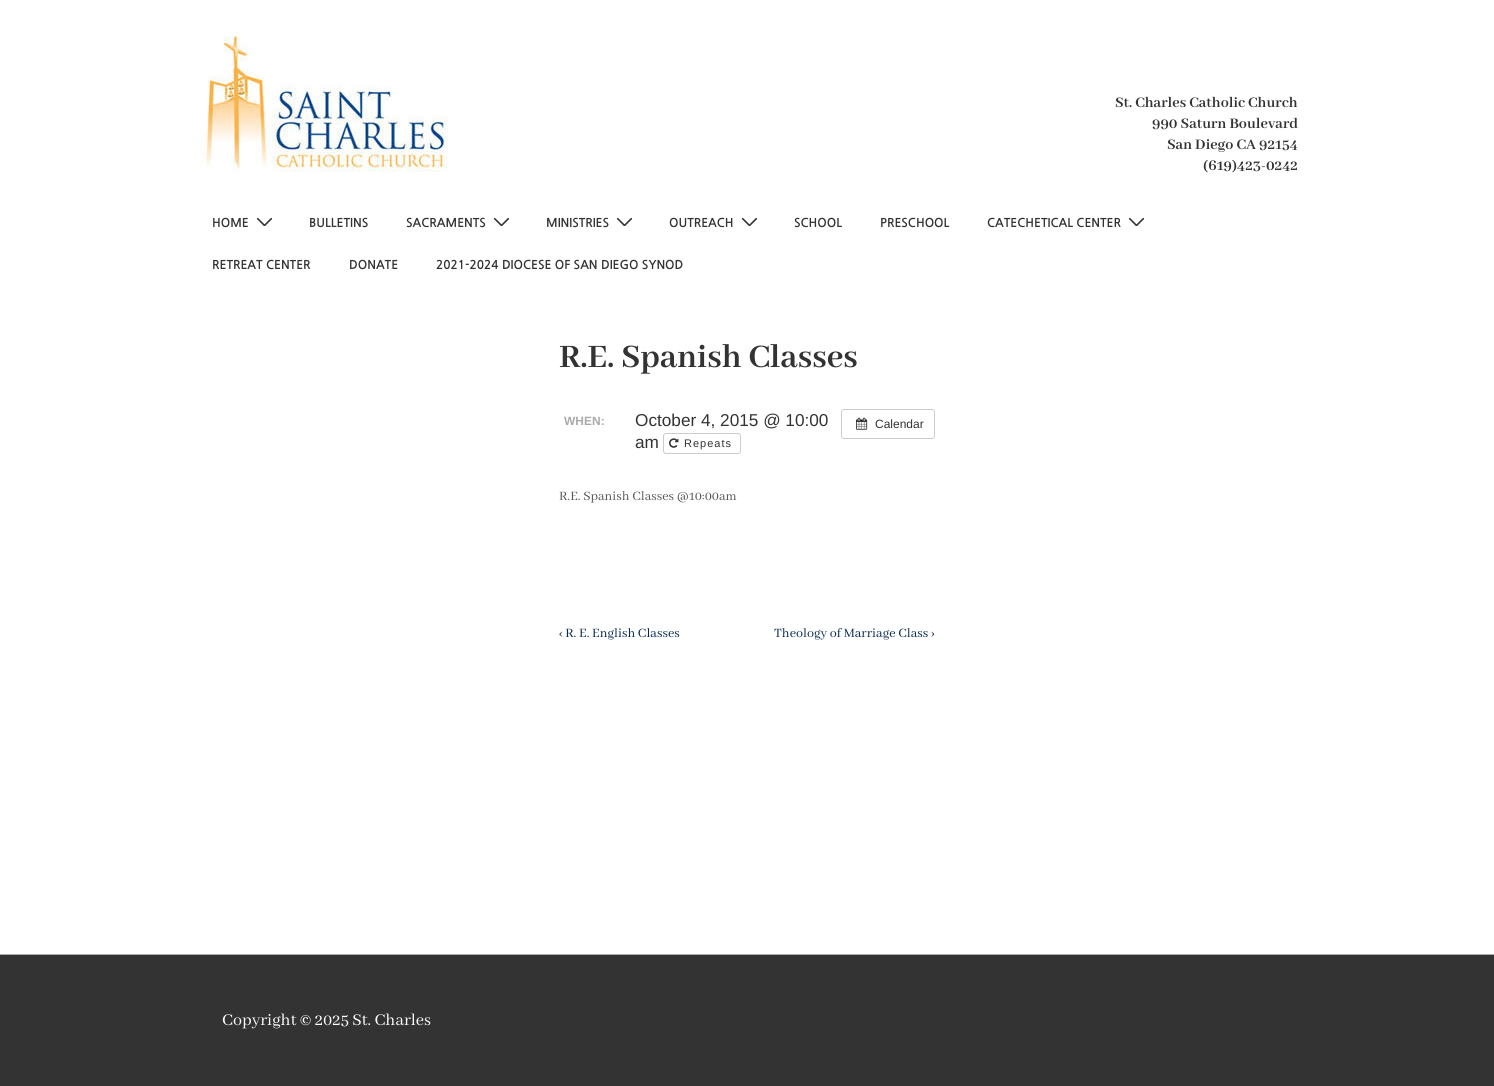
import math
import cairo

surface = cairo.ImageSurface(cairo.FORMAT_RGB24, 1494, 1086)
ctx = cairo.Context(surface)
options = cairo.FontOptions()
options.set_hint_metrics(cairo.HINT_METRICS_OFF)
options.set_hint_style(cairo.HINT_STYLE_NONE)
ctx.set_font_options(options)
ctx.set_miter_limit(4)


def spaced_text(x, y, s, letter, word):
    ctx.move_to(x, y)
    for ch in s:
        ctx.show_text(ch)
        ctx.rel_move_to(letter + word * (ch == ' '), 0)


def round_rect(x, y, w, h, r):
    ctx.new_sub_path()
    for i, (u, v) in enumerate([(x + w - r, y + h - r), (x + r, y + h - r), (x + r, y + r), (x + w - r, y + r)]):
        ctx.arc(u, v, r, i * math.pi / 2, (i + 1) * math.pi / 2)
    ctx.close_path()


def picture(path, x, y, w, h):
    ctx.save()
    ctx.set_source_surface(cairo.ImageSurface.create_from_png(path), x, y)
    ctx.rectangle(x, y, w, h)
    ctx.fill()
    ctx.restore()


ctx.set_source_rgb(1, 1, 1)
ctx.paint()
picture("img1.png", 200, 32, 248, 140)
ctx.select_font_face("Abhaya Libre", cairo.FONT_SLANT_NORMAL, cairo.FONT_WEIGHT_BOLD)
ctx.set_font_size(16)
ctx.set_source_rgb(0.2, 0.2, 0.2)
ctx.move_to(1115, 107)
ctx.show_text("St. Charles Catholic Church")
ctx.move_to(1152, 128)
ctx.show_text("990 Saturn Boulevard")
ctx.move_to(1167, 149)
ctx.show_text("San Diego CA 92154")
ctx.move_to(1203, 170)
ctx.show_text("(619)423-0242")
ctx.select_font_face("NanumGothic", cairo.FONT_SLANT_NORMAL, cairo.FONT_WEIGHT_BOLD)
ctx.set_font_size(12)
ctx.move_to(212, 227)
ctx.show_text("HOME")
ctx.save()
ctx.rectangle(257, 218, 15, 8)
ctx.clip()
ctx.new_path()
ctx.move_to(257.5, 218.5)
ctx.line_to(264.5, 225.5)
ctx.line_to(271.5, 218.5)
ctx.set_line_width(1.6)
ctx.set_line_cap(cairo.LINE_CAP_ROUND)
ctx.stroke()
ctx.restore()
ctx.move_to(309, 227)
ctx.show_text("BULLETINS")
ctx.move_to(406, 227)
ctx.show_text("SACRAMENTS")
ctx.save()
ctx.rectangle(494, 218, 15, 8)
ctx.clip()
ctx.new_path()
ctx.move_to(494.5, 218.5)
ctx.line_to(501.5, 225.5)
ctx.line_to(508.5, 218.5)
ctx.set_line_width(1.6)
ctx.set_line_cap(cairo.LINE_CAP_ROUND)
ctx.stroke()
ctx.restore()
ctx.move_to(546, 227)
ctx.show_text("MINISTRIES")
ctx.save()
ctx.rectangle(617, 218, 15, 8)
ctx.clip()
ctx.new_path()
ctx.move_to(617.5, 218.5)
ctx.line_to(624.5, 225.5)
ctx.line_to(631.5, 218.5)
ctx.set_line_width(1.6)
ctx.set_line_cap(cairo.LINE_CAP_ROUND)
ctx.stroke()
ctx.restore()
ctx.move_to(669, 227)
ctx.show_text("OUTREACH")
ctx.save()
ctx.rectangle(742, 218, 15, 8)
ctx.clip()
ctx.new_path()
ctx.move_to(742.5, 218.5)
ctx.line_to(749.5, 225.5)
ctx.line_to(756.5, 218.5)
ctx.set_line_width(1.6)
ctx.set_line_cap(cairo.LINE_CAP_ROUND)
ctx.stroke()
ctx.restore()
ctx.move_to(794, 227)
ctx.show_text("SCHOOL")
ctx.move_to(880, 227)
ctx.show_text("PRESCHOOL")
ctx.move_to(987, 227)
ctx.show_text("CATECHETICAL CENTER")
ctx.save()
ctx.rectangle(1129, 218, 15, 8)
ctx.clip()
ctx.new_path()
ctx.move_to(1129.5, 218.5)
ctx.line_to(1136.5, 225.5)
ctx.line_to(1143.5, 218.5)
ctx.set_line_width(1.6)
ctx.set_line_cap(cairo.LINE_CAP_ROUND)
ctx.stroke()
ctx.restore()
ctx.move_to(212, 269)
ctx.show_text("RETREAT CENTER")
ctx.move_to(349, 269)
ctx.show_text("DONATE")
ctx.move_to(436, 269)
ctx.show_text("2021-2024 DIOCESE OF SAN DIEGO SYNOD")
ctx.select_font_face("Abhaya Libre", cairo.FONT_SLANT_NORMAL, cairo.FONT_WEIGHT_BOLD)
ctx.set_font_size(36)
ctx.move_to(559, 367)
ctx.show_text("R.E. Spanish Classes")
ctx.select_font_face("Liberation Sans", cairo.FONT_SLANT_NORMAL, cairo.FONT_WEIGHT_BOLD)
ctx.set_font_size(12)
ctx.set_source_rgb(0.667, 0.667, 0.667)
ctx.move_to(564, 425)
ctx.show_text("WHEN:")
ctx.select_font_face("Liberation Sans")
ctx.set_font_size(17.2)
ctx.set_source_rgb(0.2, 0.2, 0.2)
ctx.move_to(635, 426)
ctx.show_text("October 4, 2015 @ 10:00")
ctx.move_to(635, 448)
ctx.show_text("am")
round_rect(663.5, 433.5, 77, 20, 2.5)
ctx.set_source_rgb(0.8, 0.8, 0.8)
ctx.set_line_width(1)
ctx.stroke()
picture("img2.png", 669, 438, 10, 10)
ctx.set_font_size(11)
ctx.set_source_rgb(0.2, 0.2, 0.2)
spaced_text(684, 447, "Repeats", 1, 0)
round_rect(841.5, 409.5, 93, 29, 2.5)
ctx.set_source_rgb(0.8, 0.8, 0.8)
ctx.stroke()
picture("img3.png", 856, 417, 12, 13)
ctx.set_font_size(12)
ctx.set_source_rgb(0.2, 0.2, 0.2)
ctx.move_to(875, 428)
ctx.show_text("Calendar")
ctx.select_font_face("Abhaya Libre")
ctx.set_font_size(14)
ctx.set_source_rgb(0.333, 0.333, 0.333)
ctx.move_to(559, 500)
ctx.show_text("R.E. Spanish Classes @10:00am")
ctx.set_source_rgb(0.027, 0.153, 0.31)
ctx.move_to(559, 637)
ctx.show_text("‹ R. E. English Classes")
ctx.move_to(774, 637)
ctx.show_text("Theology of Marriage Class ›")
ctx.set_source_rgb(0.2, 0.2, 0.2)
ctx.rectangle(0, 955, 1494, 131)
ctx.fill()
ctx.set_source_rgb(0.667, 0.667, 0.667)
ctx.rectangle(0, 954, 1494, 1)
ctx.fill()
ctx.set_font_size(18)
ctx.set_source_rgb(1, 1, 1)
ctx.move_to(222, 1025)
ctx.show_text("Copyright © 2025 St. Charles")
surface.write_to_png("page.png")
